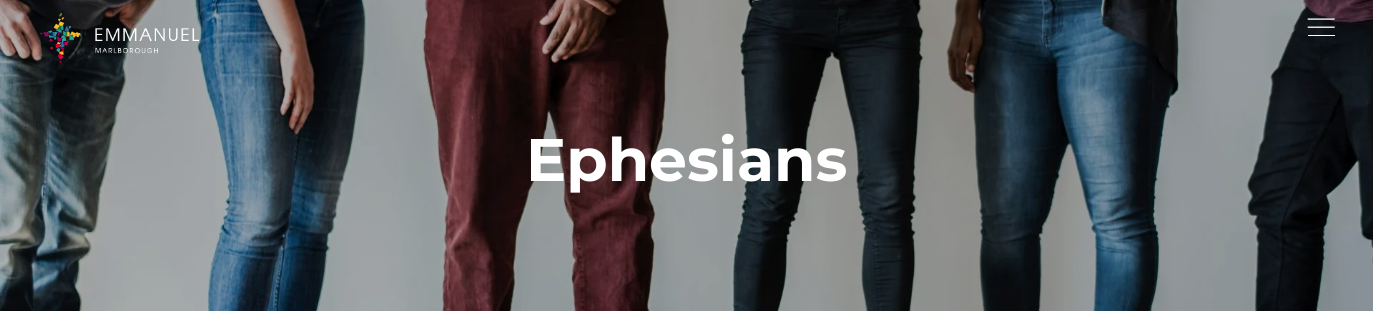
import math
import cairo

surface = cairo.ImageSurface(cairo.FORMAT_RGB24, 1373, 311)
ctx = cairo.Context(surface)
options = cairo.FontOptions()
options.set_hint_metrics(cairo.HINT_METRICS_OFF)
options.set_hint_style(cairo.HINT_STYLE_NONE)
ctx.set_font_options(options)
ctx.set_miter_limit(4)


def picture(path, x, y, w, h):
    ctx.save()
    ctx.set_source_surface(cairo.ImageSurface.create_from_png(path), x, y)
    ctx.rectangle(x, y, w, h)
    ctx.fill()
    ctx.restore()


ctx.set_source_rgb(1, 1, 1)
ctx.paint()
picture("img3.png", 0, 0, 1373, 311)
picture("img1.png", 40, 13, 159, 50)
picture("img2.png", 1307, 18, 28, 18)
ctx.select_font_face("Montserrat", cairo.FONT_SLANT_NORMAL, cairo.FONT_WEIGHT_BOLD)
ctx.set_font_size(60)
ctx.set_source_rgb(1, 1, 1)
ctx.move_to(526, 181)
ctx.show_text("Ephesians")
surface.write_to_png("page.png")
